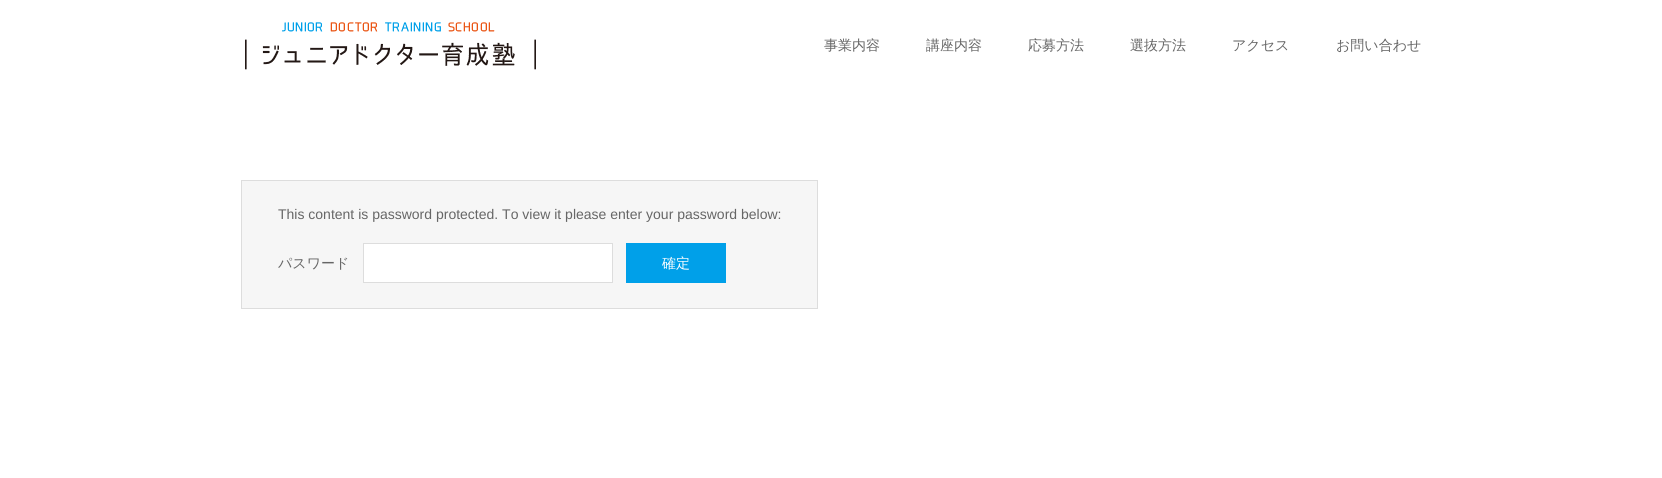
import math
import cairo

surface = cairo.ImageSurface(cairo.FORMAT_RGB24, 1662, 478)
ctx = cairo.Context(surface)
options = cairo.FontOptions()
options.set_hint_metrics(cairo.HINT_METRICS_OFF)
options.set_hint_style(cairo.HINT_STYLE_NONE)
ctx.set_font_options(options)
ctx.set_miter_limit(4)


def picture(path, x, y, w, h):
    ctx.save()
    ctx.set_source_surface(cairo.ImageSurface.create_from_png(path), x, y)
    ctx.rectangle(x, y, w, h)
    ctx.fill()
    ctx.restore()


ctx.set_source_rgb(1, 1, 1)
ctx.paint()
picture("img1.png", 245, 22, 291, 48)
ctx.select_font_face("WenQuanYi Zen Hei Medium")
ctx.set_font_size(14)
ctx.set_source_rgb(0.4, 0.4, 0.4)
ctx.move_to(824, 50)
ctx.show_text("事業内容")
ctx.move_to(926, 50)
ctx.show_text("講座内容")
ctx.move_to(1028, 50)
ctx.show_text("応募方法")
ctx.move_to(1130, 50)
ctx.show_text("選抜方法")
ctx.move_to(1232, 50)
ctx.show_text("アクセス")
ctx.move_to(1336, 50)
ctx.show_text("お問い合わせ")
ctx.set_source_rgb(0.961, 0.961, 0.961)
ctx.rectangle(241.5, 180.5, 576, 128)
ctx.fill_preserve()
ctx.set_source_rgb(0.867, 0.867, 0.867)
ctx.set_line_width(1)
ctx.stroke()
ctx.select_font_face("Liberation Sans")
ctx.set_source_rgb(0.4, 0.4, 0.4)
ctx.move_to(278, 219)
ctx.show_text("This content is password protected. To view it please enter your password below:")
ctx.select_font_face("WenQuanYi Zen Hei Medium")
ctx.move_to(278, 268)
ctx.show_text("パスワード")
ctx.set_source_rgb(1, 1, 1)
ctx.rectangle(363.5, 243.5, 249, 39)
ctx.fill_preserve()
ctx.set_source_rgb(0.867, 0.867, 0.867)
ctx.stroke()
ctx.set_source_rgb(0, 0.627, 0.914)
ctx.rectangle(626, 243, 100, 40)
ctx.fill()
ctx.set_source_rgb(1, 1, 1)
ctx.move_to(662, 268)
ctx.show_text("確定")
surface.write_to_png("page.png")
